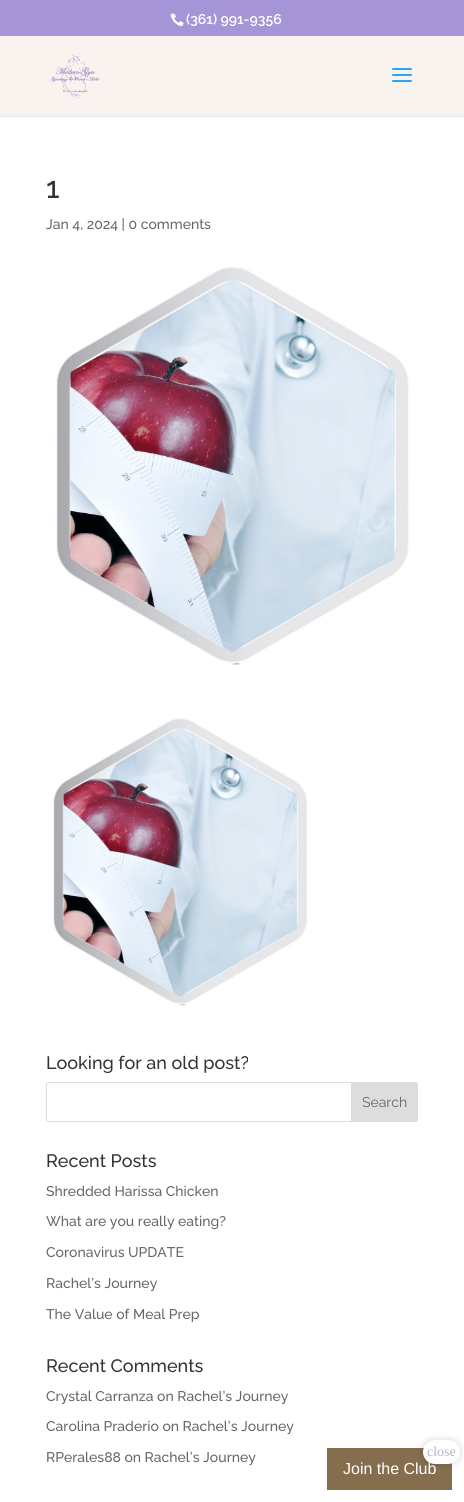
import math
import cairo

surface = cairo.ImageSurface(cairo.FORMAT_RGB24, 464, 1502)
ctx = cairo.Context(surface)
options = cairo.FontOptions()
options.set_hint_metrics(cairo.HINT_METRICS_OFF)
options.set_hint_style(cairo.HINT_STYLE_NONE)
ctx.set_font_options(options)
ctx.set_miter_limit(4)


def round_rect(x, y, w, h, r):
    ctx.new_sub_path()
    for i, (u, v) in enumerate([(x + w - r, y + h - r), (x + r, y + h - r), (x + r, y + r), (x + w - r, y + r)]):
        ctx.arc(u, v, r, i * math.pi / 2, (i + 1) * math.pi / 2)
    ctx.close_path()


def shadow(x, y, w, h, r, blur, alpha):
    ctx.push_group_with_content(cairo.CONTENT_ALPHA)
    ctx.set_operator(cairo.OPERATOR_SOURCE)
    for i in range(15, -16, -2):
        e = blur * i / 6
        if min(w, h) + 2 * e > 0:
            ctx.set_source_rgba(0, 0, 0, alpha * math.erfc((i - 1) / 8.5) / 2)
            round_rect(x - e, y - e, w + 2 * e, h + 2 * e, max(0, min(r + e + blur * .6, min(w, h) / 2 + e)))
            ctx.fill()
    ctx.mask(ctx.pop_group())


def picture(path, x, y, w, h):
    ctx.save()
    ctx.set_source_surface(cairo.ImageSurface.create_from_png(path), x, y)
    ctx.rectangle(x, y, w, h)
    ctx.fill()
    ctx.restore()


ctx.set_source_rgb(1, 1, 1)
ctx.paint()
ctx.set_source_rgb(0.651, 0.584, 0.839)
ctx.rectangle(0, 0, 464, 36)
ctx.fill()
picture("img1.png", 170, 13, 14, 14)
ctx.select_font_face("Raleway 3 Thin")
ctx.set_font_size(14)
ctx.set_source_rgb(1, 1, 1)
ctx.move_to(186, 24)
ctx.show_text("(361) 991-9356")
ctx.set_source_rgb(0.902, 0.902, 0.902)
ctx.rectangle(0, 116, 464, 1)
ctx.fill()
ctx.set_source_rgb(0.976, 0.953, 0.937)
ctx.rectangle(0, 36, 464, 80)
ctx.fill()
picture("img2.png", 50, 54, 50, 44)
picture("img3.png", 392, 68, 20, 14)
ctx.select_font_face("Raleway Thin")
ctx.set_font_size(30)
ctx.set_source_rgb(0.2, 0.2, 0.2)
ctx.move_to(46, 198)
ctx.show_text("1")
ctx.set_font_size(14)
ctx.set_source_rgb(0.4, 0.4, 0.4)
ctx.move_to(46, 229)
ctx.show_text("Jan 4, 2024 | 0 comments")
picture("img4.png", 56, 267, 353, 398)
picture("img5.png", 53, 718, 255, 288)
ctx.set_font_size(18)
ctx.set_source_rgb(0.2, 0.2, 0.2)
ctx.move_to(46, 1069)
ctx.show_text("Looking for an old post?")
round_rect(46.5, 1082.5, 371, 39, 2.5)
ctx.set_source_rgb(0.867, 0.867, 0.867)
ctx.set_line_width(1)
ctx.stroke()
ctx.new_path()
ctx.move_to(351.5, 1082.5)
ctx.line_to(415, 1082.5)
ctx.curve_to(416.5, 1082.5, 417.5, 1083.5, 417.5, 1085)
ctx.line_to(417.5, 1119)
ctx.curve_to(417.5, 1120.5, 416.5, 1121.5, 415, 1121.5)
ctx.line_to(351.5, 1121.5)
ctx.close_path()
ctx.fill_preserve()
ctx.stroke()
ctx.select_font_face("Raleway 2 Thin")
ctx.set_font_size(14)
ctx.set_source_rgb(0.4, 0.4, 0.4)
ctx.move_to(362, 1107)
ctx.show_text("Search")
ctx.select_font_face("Raleway Thin")
ctx.set_font_size(18)
ctx.set_source_rgb(0.2, 0.2, 0.2)
ctx.move_to(46, 1167)
ctx.show_text("Recent Posts")
ctx.set_font_size(14)
ctx.set_source_rgb(0.4, 0.4, 0.4)
ctx.move_to(46, 1196)
ctx.show_text("Shredded Harissa Chicken")
ctx.move_to(46, 1226)
ctx.show_text("What are you really eating?")
ctx.move_to(46, 1257)
ctx.show_text("Coronavirus UPDATE")
ctx.move_to(46, 1288)
ctx.show_text("Rachel’s Journey")
ctx.move_to(46, 1319)
ctx.show_text("The Value of Meal Prep")
ctx.set_font_size(18)
ctx.set_source_rgb(0.2, 0.2, 0.2)
ctx.move_to(46, 1372)
ctx.show_text("Recent Comments")
ctx.set_font_size(14)
ctx.set_source_rgb(0.4, 0.4, 0.4)
ctx.move_to(46, 1401)
ctx.show_text("Crystal Carranza on Rachel’s Journey")
ctx.move_to(46, 1431)
ctx.show_text("Carolina Praderio on Rachel’s Journey")
ctx.move_to(46, 1462)
ctx.show_text("RPerales88 on Rachel’s Journey")
ctx.set_source_rgb(0.518, 0.431, 0.306)
ctx.rectangle(327, 1448, 125, 42)
ctx.fill()
ctx.set_source_rgb(0, 0, 0)
shadow(423, 1440, 37, 24, 12, 4, 0.16)
ctx.set_source_rgb(1, 1, 1)
round_rect(423, 1440, 37, 24, 12)
ctx.fill()
ctx.select_font_face("Liberation Serif")
ctx.set_source_rgb(0.69, 0.722, 0.776)
ctx.move_to(427, 1456)
ctx.show_text("close")
ctx.select_font_face("Liberation Sans")
ctx.set_font_size(16)
ctx.set_source_rgb(1, 1, 1)
ctx.move_to(343, 1474)
ctx.show_text("Join the Club")
surface.write_to_png("page.png")
